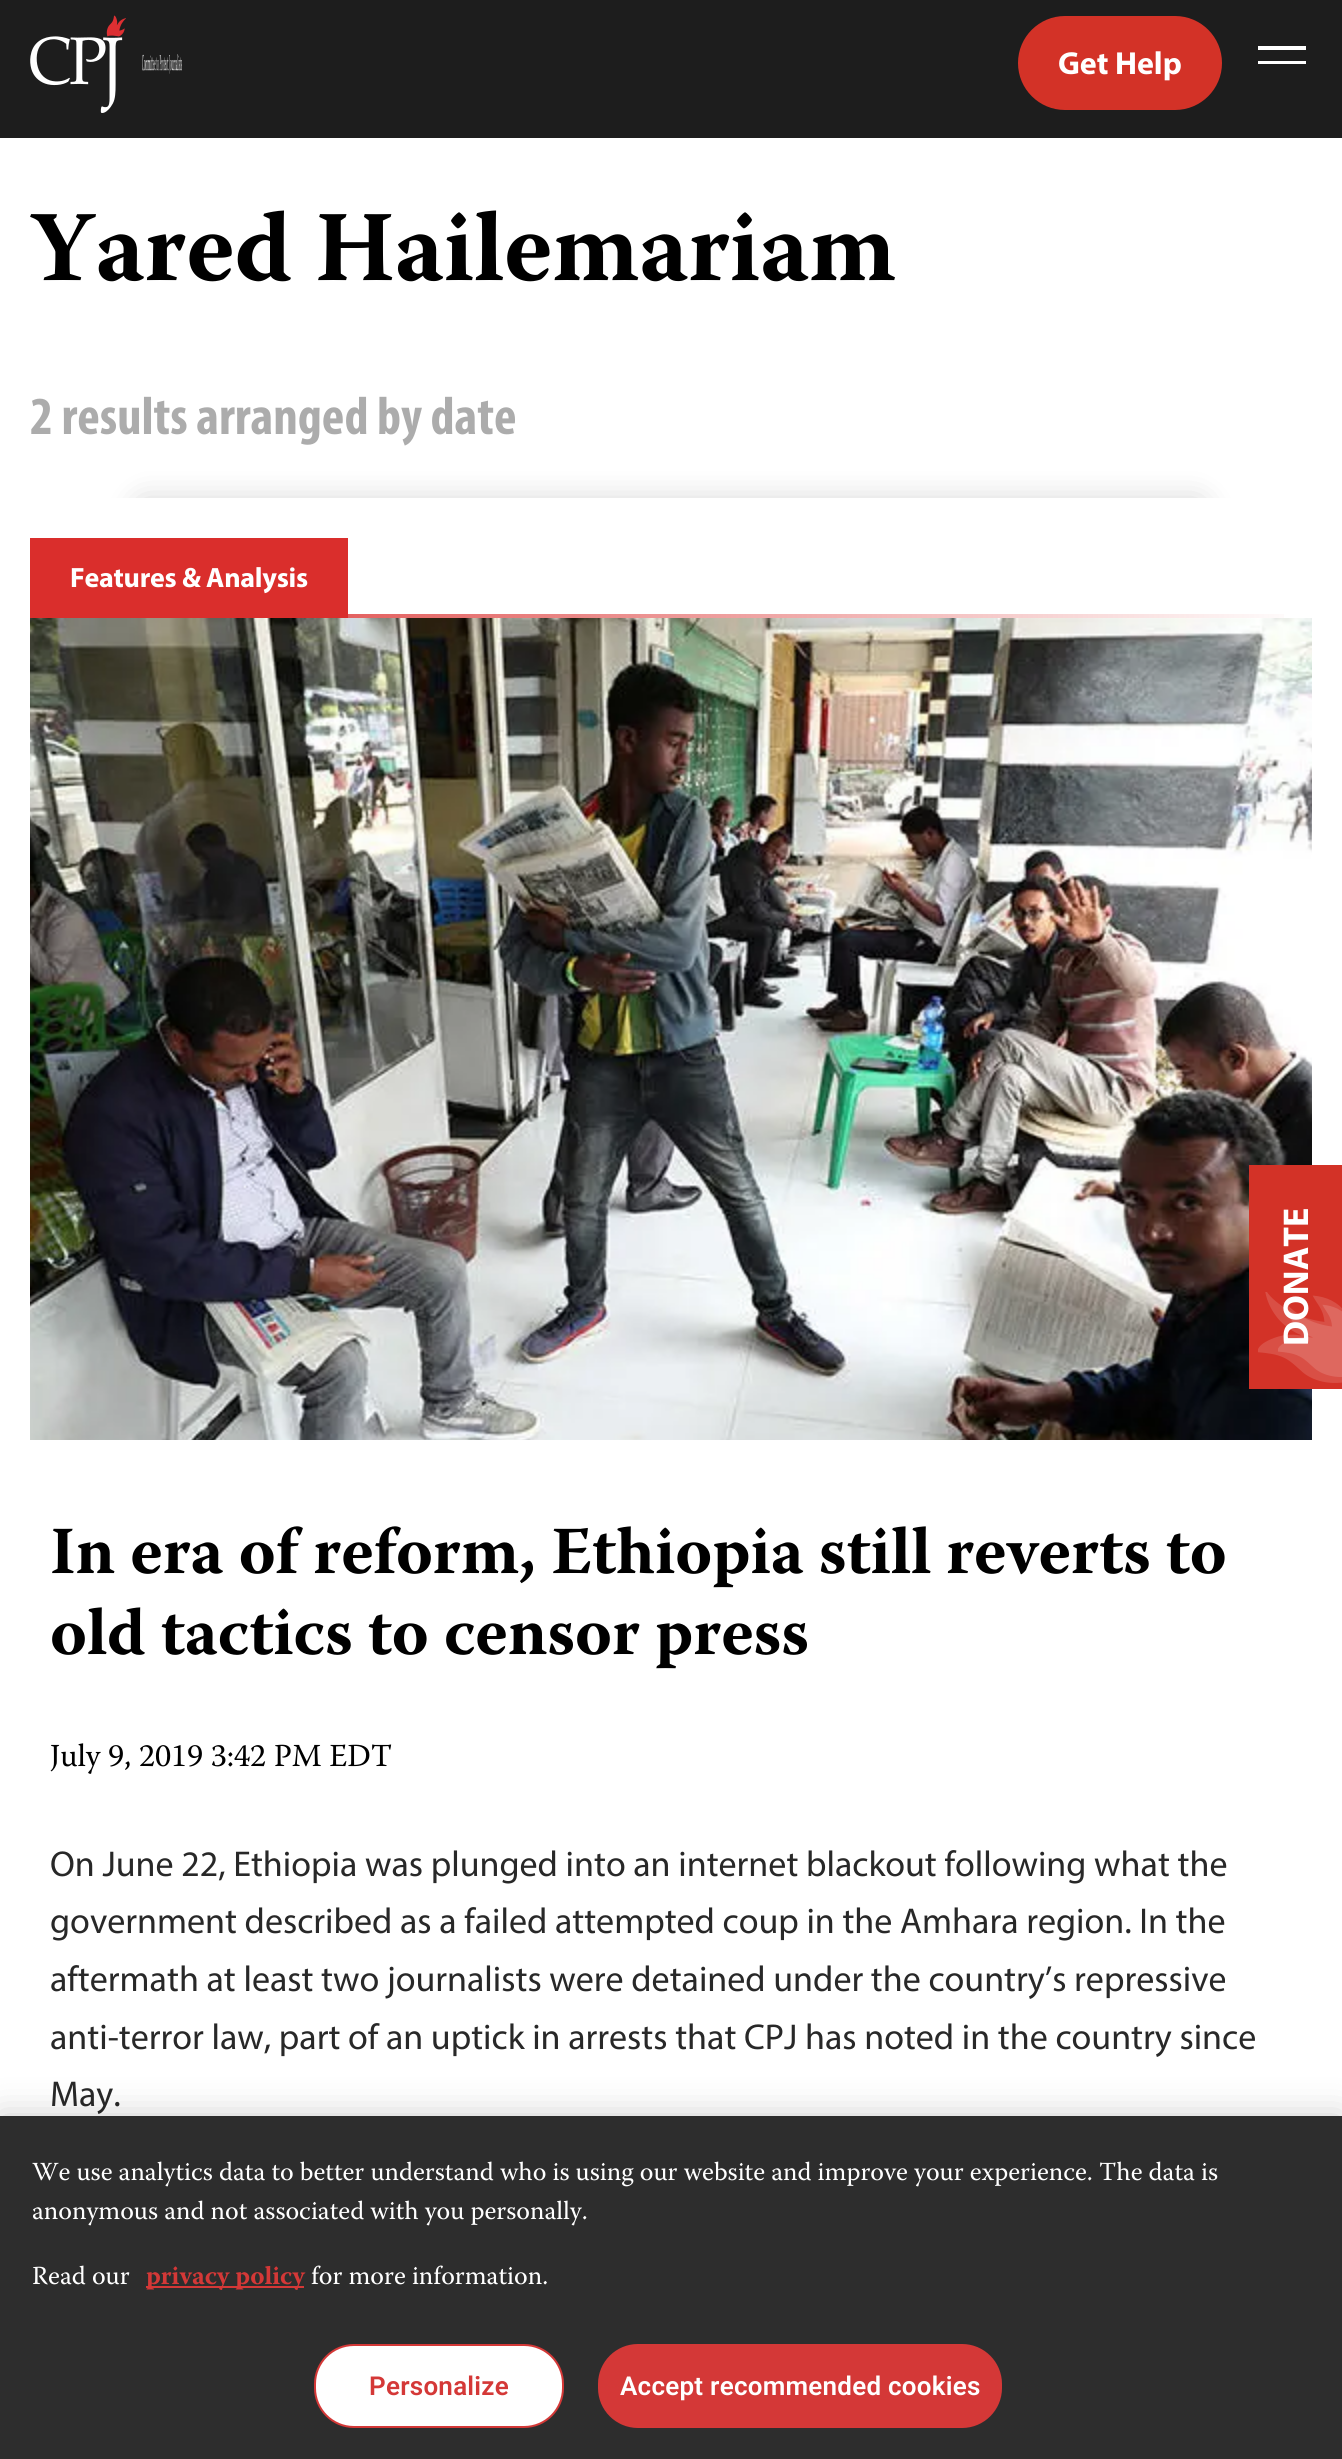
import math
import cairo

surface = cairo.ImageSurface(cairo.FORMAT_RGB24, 1342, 2459)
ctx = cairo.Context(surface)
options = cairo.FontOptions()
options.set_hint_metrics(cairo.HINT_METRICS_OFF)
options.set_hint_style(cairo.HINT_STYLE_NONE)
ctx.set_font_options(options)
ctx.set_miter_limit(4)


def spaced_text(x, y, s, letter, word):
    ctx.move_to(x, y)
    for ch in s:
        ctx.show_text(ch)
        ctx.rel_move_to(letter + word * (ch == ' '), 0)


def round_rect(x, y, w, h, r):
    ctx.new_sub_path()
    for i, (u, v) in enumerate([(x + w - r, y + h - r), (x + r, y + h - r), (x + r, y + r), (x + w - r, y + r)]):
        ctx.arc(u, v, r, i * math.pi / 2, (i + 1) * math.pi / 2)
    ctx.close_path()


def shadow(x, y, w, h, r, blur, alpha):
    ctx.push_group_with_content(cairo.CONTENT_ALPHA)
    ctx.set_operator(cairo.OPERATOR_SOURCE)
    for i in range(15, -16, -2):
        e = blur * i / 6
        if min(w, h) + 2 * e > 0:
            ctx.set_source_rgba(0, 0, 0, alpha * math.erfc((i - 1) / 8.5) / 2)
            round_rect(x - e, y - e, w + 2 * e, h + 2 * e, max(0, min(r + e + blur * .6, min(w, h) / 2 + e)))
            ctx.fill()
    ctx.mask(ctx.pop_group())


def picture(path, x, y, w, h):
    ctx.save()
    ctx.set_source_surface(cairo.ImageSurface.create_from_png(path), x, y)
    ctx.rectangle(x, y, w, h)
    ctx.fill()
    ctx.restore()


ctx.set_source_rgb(1, 1, 1)
ctx.paint()
ctx.set_source_rgb(0.114, 0.114, 0.114)
ctx.rectangle(0, 0, 1342, 138)
ctx.fill()
picture("img1.png", 30, 15, 96, 98)
picture("img2.png", 142, 54, 40, 20)
ctx.set_source_rgb(0.827, 0.196, 0.153)
round_rect(1018, 16, 204, 94, 47)
ctx.fill()
ctx.select_font_face("Myriad", cairo.FONT_SLANT_NORMAL, cairo.FONT_WEIGHT_BOLD)
ctx.set_font_size(32)
ctx.set_source_rgb(1, 1, 1)
ctx.move_to(1058, 74)
ctx.show_text("Get Help")
ctx.save()
ctx.rectangle(1250, 32, 64, 32)
ctx.clip()
ctx.new_path()
ctx.move_to(1306, 80)
ctx.line_to(1258, 80)
ctx.line_to(1258, 76)
ctx.line_to(1306, 76)
ctx.close_path()
ctx.move_to(1258, 50)
ctx.line_to(1306, 50)
ctx.line_to(1306, 46)
ctx.line_to(1258, 46)
ctx.close_path()
ctx.move_to(1306, 61)
ctx.line_to(1258, 61)
ctx.line_to(1258, 65)
ctx.line_to(1306, 65)
ctx.close_path()
ctx.fill()
ctx.restore()
ctx.select_font_face("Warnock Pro", cairo.FONT_SLANT_NORMAL, cairo.FONT_WEIGHT_BOLD)
ctx.set_font_size(100)
ctx.set_source_rgb(0, 0, 0)
ctx.move_to(30, 280)
ctx.show_text("Yared Hailemariam")
ctx.select_font_face("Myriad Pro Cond", cairo.FONT_SLANT_NORMAL, cairo.FONT_WEIGHT_BOLD)
ctx.set_font_size(53.75)
ctx.set_source_rgb(0.675, 0.675, 0.675)
ctx.move_to(30, 434)
ctx.show_text("2 results arranged by date")
ctx.save()
ctx.rectangle(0, 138, 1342, 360)
ctx.clip()
ctx.set_source_rgb(0, 0, 0)
shadow(134, 498, 1074, 40, 20, 15, 0.15)
ctx.restore()
ctx.set_source_rgb(0.855, 0.18, 0.173)
ctx.rectangle(30, 538, 318, 80)
ctx.fill()
ctx.select_font_face("Myriad", cairo.FONT_SLANT_NORMAL, cairo.FONT_WEIGHT_BOLD)
ctx.set_font_size(28)
ctx.set_source_rgb(1, 1, 1)
spaced_text(70, 587, "Features & Analysis", -0.25, 0)
gradient = cairo.LinearGradient(30, 616, 1312, 616)
gradient.add_color_stop_rgba(0, 0.855, 0.18, 0.173, 1)
gradient.add_color_stop_rgba(1, 0.855, 0.18, 0.173, 0)
ctx.set_source(gradient)
ctx.rectangle(348, 614, 936, 4)
ctx.fill()
picture("img3.png", 30, 618, 1282, 822)
ctx.select_font_face("Warnock Pro", cairo.FONT_SLANT_NORMAL, cairo.FONT_WEIGHT_BOLD)
ctx.set_font_size(67.1)
ctx.set_source_rgb(0, 0, 0)
ctx.move_to(50, 1573)
ctx.show_text("In era of reform, Ethiopia still reverts to")
ctx.move_to(50, 1654)
ctx.show_text("old tactics to censor press")
ctx.select_font_face("Warnock Pro")
ctx.set_font_size(32)
ctx.move_to(50, 1766)
ctx.show_text("July 9, 2019 3:42 PM EDT")
ctx.select_font_face("Myriad")
ctx.set_font_size(36)
ctx.set_source_rgb(0.157, 0.157, 0.157)
ctx.move_to(50, 1876)
ctx.show_text("On June 22, Ethiopia was plunged into an internet blackout following what the")
ctx.move_to(50, 1933)
ctx.show_text("government described as a failed attempted coup in the Amhara region. In the")
ctx.move_to(50, 1991)
ctx.show_text("aftermath at least two journalists were detained under the country’s repressive")
ctx.move_to(50, 2049)
ctx.show_text("anti-terror law, part of an uptick in arrests that CPJ has noted in the country since")
ctx.move_to(50, 2106)
ctx.show_text("May.")
ctx.set_source_rgb(0.827, 0.196, 0.153)
ctx.rectangle(1249, 1165, 93, 224)
ctx.fill()
picture("img4.png", 1258, 1292, 84, 91)
picture("img5.png", 1278, 1302, 64, 75)
ctx.select_font_face("Myriad", cairo.FONT_SLANT_NORMAL, cairo.FONT_WEIGHT_BOLD)
ctx.set_source_rgb(1, 1, 1)
ctx.save()
ctx.translate(1308, 1346)
ctx.rotate(-90 * math.pi / 180)
ctx.move_to(0, 0)
ctx.show_text("DONATE")
ctx.restore()
ctx.set_source_rgb(0, 0, 0)
shadow(0, 2116, 1342, 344, 0, 18, 0.2)
ctx.set_source_rgb(0.176, 0.176, 0.176)
ctx.rectangle(0, 2116, 1342, 343)
ctx.fill()
ctx.select_font_face("Warnock Pro")
ctx.set_font_size(26)
ctx.set_source_rgb(1, 1, 1)
ctx.move_to(32, 2180)
ctx.show_text("We use analytics data to better understand who is using our website and improve your experience. The data is")
ctx.move_to(32, 2219)
ctx.show_text("anonymous and not associated with you personally.")
ctx.move_to(32, 2284)
ctx.show_text("Read our")
ctx.set_source_rgb(0.831, 0.22, 0.216)
ctx.rectangle(146, 2286, 158, 2)
ctx.fill()
ctx.select_font_face("Warnock Pro", cairo.FONT_SLANT_NORMAL, cairo.FONT_WEIGHT_BOLD)
ctx.move_to(146, 2284)
ctx.show_text("privacy policy")
ctx.select_font_face("Warnock Pro")
ctx.set_source_rgb(1, 1, 1)
ctx.move_to(311, 2284)
ctx.show_text("for more information.")
round_rect(315, 2345, 248, 82, 39)
ctx.fill_preserve()
ctx.set_source_rgb(0.831, 0.22, 0.216)
ctx.stroke()
ctx.select_font_face("Roboto SemiBold")
spaced_text(369, 2395, "Personalize", 0.25, 0)
round_rect(599, 2345, 402, 82, 39)
ctx.fill_preserve()
ctx.stroke()
ctx.set_source_rgb(1, 1, 1)
spaced_text(620, 2395, "Accept recommended cookies", 0.25, 0)
surface.write_to_png("page.png")
